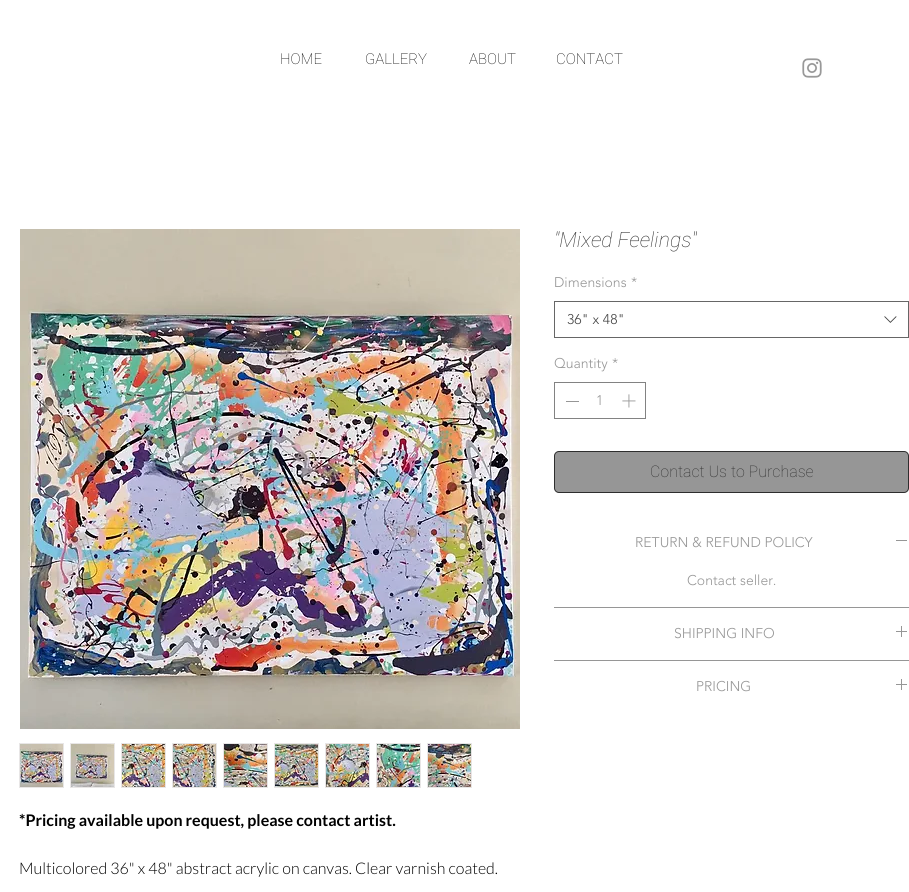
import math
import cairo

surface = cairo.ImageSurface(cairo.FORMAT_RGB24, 909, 892)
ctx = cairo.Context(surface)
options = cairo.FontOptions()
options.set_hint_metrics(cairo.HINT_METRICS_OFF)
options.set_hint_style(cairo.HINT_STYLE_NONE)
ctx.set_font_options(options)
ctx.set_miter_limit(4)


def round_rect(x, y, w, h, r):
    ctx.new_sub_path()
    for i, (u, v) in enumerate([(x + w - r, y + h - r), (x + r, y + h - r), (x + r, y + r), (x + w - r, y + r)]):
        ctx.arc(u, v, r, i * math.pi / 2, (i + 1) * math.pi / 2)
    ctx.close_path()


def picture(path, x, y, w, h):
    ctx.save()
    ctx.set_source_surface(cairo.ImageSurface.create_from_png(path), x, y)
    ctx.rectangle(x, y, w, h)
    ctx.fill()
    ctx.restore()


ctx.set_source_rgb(1, 1, 1)
ctx.paint()
ctx.select_font_face("Roboto Thin")
ctx.set_font_size(15)
ctx.set_source_rgb(0, 0, 0)
ctx.move_to(280, 64)
ctx.show_text("HOME")
ctx.move_to(365, 64)
ctx.show_text("GALLERY")
ctx.move_to(469, 64)
ctx.show_text("ABOUT")
ctx.move_to(556, 64)
ctx.show_text("CONTACT")
picture("img1.png", 802, 58, 20, 20)
ctx.select_font_face("Roboto Thin", cairo.FONT_SLANT_ITALIC)
ctx.set_font_size(21)
ctx.set_source_rgb(0.18, 0.18, 0.18)
ctx.move_to(554, 247)
ctx.show_text("\"Mixed Feelings\"")
ctx.select_font_face("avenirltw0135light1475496 Light")
ctx.set_font_size(14)
ctx.set_source_rgb(0.588, 0.588, 0.588)
ctx.move_to(554, 287)
ctx.show_text("Dimensions")
ctx.move_to(631, 287)
ctx.show_text("*")
ctx.rectangle(554.5, 301.5, 354, 36)
ctx.set_source_rgb(0.4, 0.4, 0.4)
ctx.set_line_width(1)
ctx.stroke()
ctx.set_source_rgb(0.267, 0.267, 0.267)
ctx.move_to(567, 324)
ctx.show_text("36\" x 48\"")
picture("img2.png", 884, 316, 13, 7)
ctx.set_source_rgb(0.588, 0.588, 0.588)
ctx.move_to(554, 368)
ctx.show_text("Quantity")
ctx.move_to(612, 368)
ctx.show_text("*")
ctx.rectangle(554.5, 382.5, 91, 36)
ctx.set_source_rgb(0.51, 0.51, 0.51)
ctx.stroke()
ctx.set_source_rgb(0.588, 0.588, 0.588)
ctx.rectangle(566, 401, 13, 1)
ctx.fill()
ctx.move_to(596, 405)
ctx.show_text("1")
picture("img3.png", 622, 394, 14, 14)
round_rect(554.5, 451.5, 354, 41, 4.5)
ctx.fill_preserve()
ctx.set_source_rgb(0.18, 0.18, 0.18)
ctx.stroke()
ctx.select_font_face("Roboto Thin")
ctx.set_font_size(16)
ctx.move_to(650, 477)
ctx.show_text("Contact Us to Purchase")
ctx.set_source_rgb(0.588, 0.588, 0.588)
ctx.rectangle(554, 607, 355, 1)
ctx.fill()
ctx.select_font_face("avenirltw0135light1475496 Light")
ctx.set_font_size(14)
ctx.move_to(635, 547)
ctx.show_text("RETURN & REFUND POLICY")
ctx.rectangle(896, 540, 11, 1)
ctx.fill()
ctx.move_to(687, 585)
ctx.show_text("Contact seller.")
ctx.rectangle(554, 660, 355, 1)
ctx.fill()
ctx.move_to(674, 638)
ctx.show_text("SHIPPING INFO")
picture("img4.png", 896, 626, 11, 11)
ctx.move_to(696, 691)
ctx.show_text("PRICING")
picture("img4.png", 896, 679, 11, 11)
picture("img5.png", 20, 229, 500, 500)
ctx.set_source_rgb(0.91, 0.902, 0.902)
ctx.rectangle(19, 743, 45, 45)
ctx.fill()
picture("img6.png", 20, 744, 43, 43)
ctx.rectangle(70, 743, 45, 45)
ctx.fill()
picture("img7.png", 71, 744, 43, 43)
ctx.rectangle(121, 743, 45, 45)
ctx.fill()
picture("img8.png", 122, 744, 43, 43)
ctx.rectangle(172, 743, 45, 45)
ctx.fill()
picture("img9.png", 173, 744, 43, 43)
ctx.rectangle(223, 743, 45, 45)
ctx.fill()
picture("img10.png", 224, 744, 43, 43)
ctx.rectangle(274, 743, 45, 45)
ctx.fill()
picture("img11.png", 275, 744, 43, 43)
ctx.rectangle(325, 743, 45, 45)
ctx.fill()
picture("img12.png", 326, 744, 43, 43)
ctx.rectangle(376, 743, 45, 45)
ctx.fill()
picture("img13.png", 377, 744, 43, 43)
ctx.rectangle(427, 743, 45, 45)
ctx.fill()
picture("img14.png", 428, 744, 43, 43)
ctx.select_font_face("Lato", cairo.FONT_SLANT_NORMAL, cairo.FONT_WEIGHT_BOLD)
ctx.set_font_size(16)
ctx.set_source_rgb(0, 0, 0)
ctx.move_to(19, 826)
ctx.show_text("*Pricing available upon request, please contact artist.")
ctx.select_font_face("Lato Light")
ctx.move_to(19, 874)
ctx.show_text("Multicolored 36\" x 48\" abstract acrylic on canvas. Clear varnish coated.")
surface.write_to_png("page.png")
